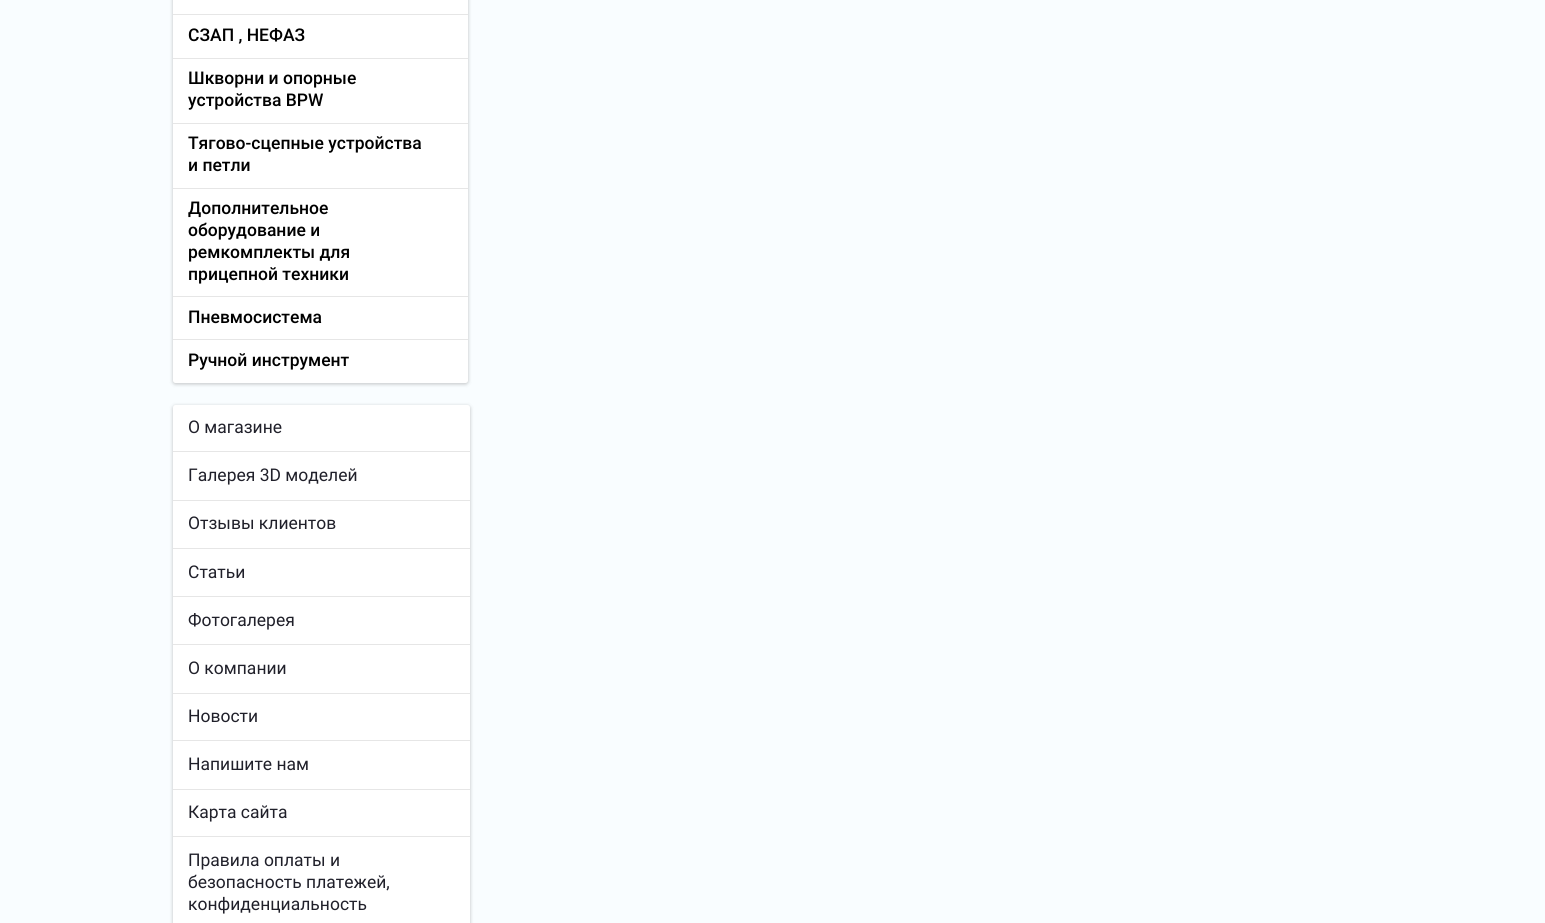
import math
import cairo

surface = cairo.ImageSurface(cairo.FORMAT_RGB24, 1545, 923)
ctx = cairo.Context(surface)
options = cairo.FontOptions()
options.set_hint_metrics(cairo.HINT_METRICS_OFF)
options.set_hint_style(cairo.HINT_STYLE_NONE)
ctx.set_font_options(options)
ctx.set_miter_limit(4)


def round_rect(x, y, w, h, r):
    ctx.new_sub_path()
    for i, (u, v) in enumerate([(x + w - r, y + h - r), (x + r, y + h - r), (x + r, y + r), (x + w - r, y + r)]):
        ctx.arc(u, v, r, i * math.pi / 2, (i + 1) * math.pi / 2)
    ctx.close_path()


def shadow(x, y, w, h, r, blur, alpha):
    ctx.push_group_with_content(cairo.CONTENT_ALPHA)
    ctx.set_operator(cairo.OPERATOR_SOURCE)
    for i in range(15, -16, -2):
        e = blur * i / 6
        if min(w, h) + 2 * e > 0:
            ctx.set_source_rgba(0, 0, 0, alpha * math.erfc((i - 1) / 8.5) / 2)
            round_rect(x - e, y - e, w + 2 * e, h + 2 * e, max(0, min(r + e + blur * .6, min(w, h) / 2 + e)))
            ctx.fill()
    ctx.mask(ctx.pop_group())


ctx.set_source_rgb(0.973, 0.992, 1)
ctx.paint()
ctx.set_source_rgb(0, 0, 0)
shadow(173, -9, 295, 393, 2.5, 2, 0.24)
ctx.set_source_rgb(1, 1, 1)
round_rect(173, -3, 295, 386, 2.5)
ctx.fill()
ctx.set_source_rgb(0.902, 0.902, 0.902)
ctx.rectangle(173, 14, 295, 1)
ctx.fill()
ctx.select_font_face("Roboto Medium")
ctx.set_font_size(17.5)
ctx.set_source_rgb(0, 0, 0)
ctx.move_to(188, 41)
ctx.show_text("СЗАП , НЕФАЗ")
ctx.set_source_rgb(0.902, 0.902, 0.902)
ctx.rectangle(173, 58, 295, 1)
ctx.fill()
ctx.set_source_rgb(0, 0, 0)
ctx.move_to(188, 84)
ctx.show_text("Шкворни и опорные")
ctx.move_to(188, 106)
ctx.show_text("устройства BPW")
ctx.set_source_rgb(0.902, 0.902, 0.902)
ctx.rectangle(173, 123, 295, 1)
ctx.fill()
ctx.set_source_rgb(0, 0, 0)
ctx.move_to(188, 149)
ctx.show_text("Тягово-сцепные устройства")
ctx.move_to(188, 171)
ctx.show_text("и петли")
ctx.set_source_rgb(0.902, 0.902, 0.902)
ctx.rectangle(173, 188, 295, 1)
ctx.fill()
ctx.set_source_rgb(0, 0, 0)
ctx.move_to(188, 214)
ctx.show_text("Дополнительное")
ctx.move_to(188, 236)
ctx.show_text("оборудование и")
ctx.move_to(188, 258)
ctx.show_text("ремкомплекты для")
ctx.move_to(188, 280)
ctx.show_text("прицепной техники")
ctx.set_source_rgb(0.902, 0.902, 0.902)
ctx.rectangle(173, 296, 295, 1)
ctx.fill()
ctx.set_source_rgb(0, 0, 0)
ctx.move_to(188, 323)
ctx.show_text("Пневмосистема")
ctx.set_source_rgb(0.902, 0.902, 0.902)
ctx.rectangle(173, 339, 295, 1)
ctx.fill()
ctx.set_source_rgb(0, 0, 0)
ctx.move_to(188, 366)
ctx.show_text("Ручной инструмент")
ctx.set_source_rgb(0, 0, 0)
shadow(173, 406, 297, 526, 2.5, 2, 0.24)
ctx.set_source_rgb(1, 1, 1)
round_rect(173, 405, 297, 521, 2.5)
ctx.fill()
ctx.select_font_face("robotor")
ctx.set_source_rgb(0.125, 0.125, 0.165)
ctx.move_to(188, 433)
ctx.show_text("О магазине")
ctx.set_source_rgb(0.902, 0.902, 0.902)
ctx.rectangle(173, 451, 297, 1)
ctx.fill()
ctx.set_source_rgb(0.125, 0.125, 0.165)
ctx.move_to(188, 481)
ctx.show_text("Галерея 3D моделей")
ctx.set_source_rgb(0.902, 0.902, 0.902)
ctx.rectangle(173, 500, 297, 1)
ctx.fill()
ctx.set_source_rgb(0.125, 0.125, 0.165)
ctx.move_to(188, 529)
ctx.show_text("Отзывы клиентов")
ctx.set_source_rgb(0.902, 0.902, 0.902)
ctx.rectangle(173, 548, 297, 1)
ctx.fill()
ctx.set_source_rgb(0.125, 0.125, 0.165)
ctx.move_to(188, 578)
ctx.show_text("Статьи")
ctx.set_source_rgb(0.902, 0.902, 0.902)
ctx.rectangle(173, 596, 297, 1)
ctx.fill()
ctx.set_source_rgb(0.125, 0.125, 0.165)
ctx.move_to(188, 626)
ctx.show_text("Фотогалерея")
ctx.set_source_rgb(0.902, 0.902, 0.902)
ctx.rectangle(173, 644, 297, 1)
ctx.fill()
ctx.set_source_rgb(0.125, 0.125, 0.165)
ctx.move_to(188, 674)
ctx.show_text("О компании")
ctx.set_source_rgb(0.902, 0.902, 0.902)
ctx.rectangle(173, 693, 297, 1)
ctx.fill()
ctx.set_source_rgb(0.125, 0.125, 0.165)
ctx.move_to(188, 722)
ctx.show_text("Новости")
ctx.set_source_rgb(0.902, 0.902, 0.902)
ctx.rectangle(173, 740, 297, 1)
ctx.fill()
ctx.set_source_rgb(0.125, 0.125, 0.165)
ctx.move_to(188, 770)
ctx.show_text("Напишите нам")
ctx.set_source_rgb(0.902, 0.902, 0.902)
ctx.rectangle(173, 789, 297, 1)
ctx.fill()
ctx.set_source_rgb(0.125, 0.125, 0.165)
ctx.move_to(188, 818)
ctx.show_text("Карта сайта")
ctx.set_source_rgb(0.902, 0.902, 0.902)
ctx.rectangle(173, 836, 297, 1)
ctx.fill()
ctx.set_source_rgb(0.125, 0.125, 0.165)
ctx.move_to(188, 866)
ctx.show_text("Правила оплаты и")
ctx.move_to(188, 888)
ctx.show_text("безопасность платежей,")
ctx.move_to(188, 910)
ctx.show_text("конфиденциальность")
surface.write_to_png("page.png")
